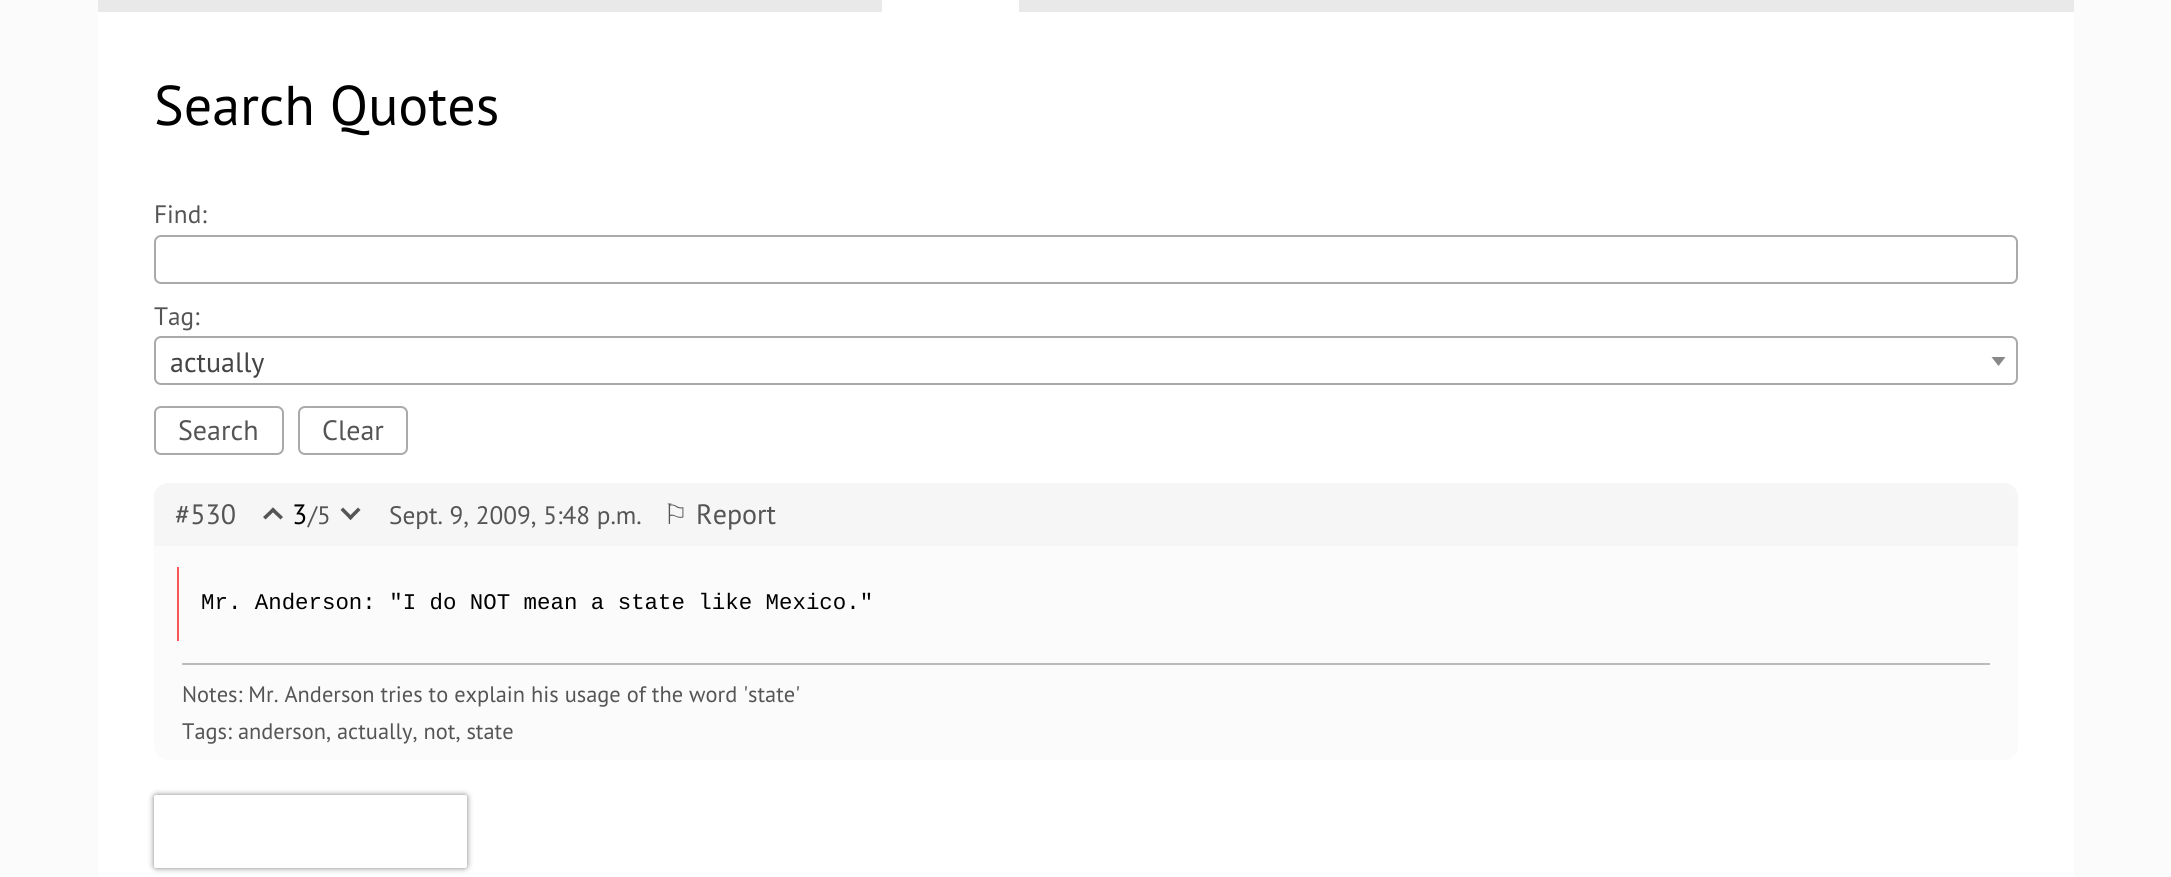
import math
import cairo

surface = cairo.ImageSurface(cairo.FORMAT_RGB24, 2171, 877)
ctx = cairo.Context(surface)
options = cairo.FontOptions()
options.set_hint_metrics(cairo.HINT_METRICS_OFF)
options.set_hint_style(cairo.HINT_STYLE_NONE)
ctx.set_font_options(options)
ctx.set_miter_limit(4)


def round_rect(x, y, w, h, r):
    ctx.new_sub_path()
    for i, (u, v) in enumerate([(x + w - r, y + h - r), (x + r, y + h - r), (x + r, y + r), (x + w - r, y + r)]):
        ctx.arc(u, v, r, i * math.pi / 2, (i + 1) * math.pi / 2)
    ctx.close_path()


def shadow(x, y, w, h, r, blur, alpha):
    ctx.push_group_with_content(cairo.CONTENT_ALPHA)
    ctx.set_operator(cairo.OPERATOR_SOURCE)
    for i in range(15, -16, -2):
        e = blur * i / 6
        if min(w, h) + 2 * e > 0:
            ctx.set_source_rgba(0, 0, 0, alpha * math.erfc((i - 1) / 8.5) / 2)
            round_rect(x - e, y - e, w + 2 * e, h + 2 * e, max(0, min(r + e + blur * .6, min(w, h) / 2 + e)))
            ctx.fill()
    ctx.mask(ctx.pop_group())


ctx.set_source_rgb(0.984, 0.984, 0.984)
ctx.paint()
ctx.set_source_rgb(0.914, 0.914, 0.914)
ctx.rectangle(98, 0, 1976, 12)
ctx.fill()
ctx.set_source_rgb(1, 1, 1)
ctx.rectangle(882, 0, 137, 12)
ctx.fill()
ctx.rectangle(98, 12, 1976, 865)
ctx.fill()
ctx.select_font_face("PT Sans")
ctx.set_font_size(56)
ctx.set_source_rgb(0, 0, 0)
ctx.move_to(154, 125)
ctx.show_text("Search Quotes")
ctx.set_font_size(25.25)
ctx.set_source_rgb(0.333, 0.333, 0.333)
ctx.move_to(154, 223)
ctx.show_text("Find:")
round_rect(155, 236, 1862, 47, 6)
ctx.set_source_rgb(0.667, 0.667, 0.667)
ctx.stroke()
ctx.set_source_rgb(0.333, 0.333, 0.333)
ctx.move_to(154, 325)
ctx.show_text("Tag:")
round_rect(155, 337, 1862, 47, 6)
ctx.set_source_rgb(0.667, 0.667, 0.667)
ctx.stroke()
ctx.set_font_size(28)
ctx.set_source_rgb(0.267, 0.267, 0.267)
ctx.move_to(170, 372)
ctx.show_text("actually")
ctx.set_source_rgb(0.533, 0.533, 0.533)
ctx.new_path()
ctx.move_to(1991.5, 357)
ctx.line_to(2005.5, 357)
ctx.line_to(1998.5, 366)
ctx.close_path()
ctx.fill()
round_rect(155, 407, 128, 47, 6)
ctx.set_source_rgb(0.667, 0.667, 0.667)
ctx.stroke()
ctx.set_source_rgb(0.333, 0.333, 0.333)
ctx.move_to(178, 440)
ctx.show_text("Search")
round_rect(299, 407, 108, 47, 6)
ctx.set_source_rgb(0.667, 0.667, 0.667)
ctx.stroke()
ctx.set_source_rgb(0.333, 0.333, 0.333)
ctx.move_to(322, 440)
ctx.show_text("Clear")
ctx.set_source_rgb(0.984, 0.984, 0.984)
round_rect(154, 483, 1864, 277, 14)
ctx.fill()
ctx.set_source_rgb(0.961, 0.961, 0.961)
ctx.new_path()
ctx.move_to(168, 483)
ctx.line_to(2004, 483)
ctx.curve_to(2011.5, 483, 2018, 489.5, 2018, 497)
ctx.line_to(2018, 546)
ctx.line_to(154, 546)
ctx.line_to(154, 497)
ctx.curve_to(154, 489.5, 160.5, 483, 168, 483)
ctx.close_path()
ctx.fill()
ctx.set_source_rgb(0.333, 0.333, 0.333)
ctx.move_to(175, 524)
ctx.show_text("#530")
ctx.new_path()
ctx.move_to(265.5, 519.5)
ctx.line_to(263, 517)
ctx.line_to(273, 507.5)
ctx.line_to(275.5, 510)
ctx.close_path()
ctx.fill()
ctx.new_path()
ctx.move_to(280.5, 519.5)
ctx.line_to(270.5, 510)
ctx.line_to(273, 507.5)
ctx.line_to(283, 517)
ctx.close_path()
ctx.fill()
ctx.set_source_rgb(0, 0, 0)
ctx.move_to(292, 524)
ctx.show_text("3")
ctx.set_font_size(25.25)
ctx.set_source_rgb(0.333, 0.333, 0.333)
ctx.move_to(308, 524)
ctx.show_text("/5")
ctx.new_path()
ctx.move_to(358, 507.5)
ctx.line_to(360.5, 510)
ctx.line_to(350.5, 520)
ctx.line_to(348, 517.5)
ctx.close_path()
ctx.fill()
ctx.new_path()
ctx.move_to(343, 507.5)
ctx.line_to(353, 517.5)
ctx.line_to(350.5, 520)
ctx.line_to(340.5, 510)
ctx.close_path()
ctx.fill()
ctx.move_to(389, 524)
ctx.show_text("Sept. 9, 2009, 5:48 p.m.")
ctx.select_font_face("DejaVu Sans")
ctx.set_font_size(28)
ctx.move_to(663, 524)
ctx.show_text("⚐")
ctx.select_font_face("PT Sans")
ctx.move_to(696, 524)
ctx.show_text("Report")
ctx.set_source_rgb(0.98, 0.333, 0.333)
ctx.rectangle(177, 567, 2, 74)
ctx.fill()
ctx.select_font_face("Liberation Mono")
ctx.set_font_size(22.4)
ctx.set_source_rgb(0, 0, 0)
ctx.move_to(201, 609)
ctx.show_text("Mr. Anderson: \"I do NOT mean a state like Mexico.\"")
ctx.set_source_rgb(0.733, 0.733, 0.733)
ctx.rectangle(182, 663, 1808, 2)
ctx.fill()
ctx.select_font_face("PT Sans")
ctx.set_source_rgb(0.333, 0.333, 0.333)
ctx.move_to(182, 702)
ctx.show_text("Notes: Mr. Anderson tries to explain his usage of the word 'state'")
ctx.move_to(182, 739)
ctx.show_text("Tags: anderson, actually, not, state")
ctx.save()
ctx.set_fill_rule(cairo.FILL_RULE_EVEN_ODD)
ctx.new_path()
ctx.move_to(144, 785)
ctx.line_to(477, 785)
ctx.line_to(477, 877)
ctx.line_to(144, 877)
ctx.close_path()
ctx.move_to(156.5, 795)
ctx.line_to(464.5, 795)
ctx.curve_to(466, 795, 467, 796, 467, 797.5)
ctx.line_to(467, 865.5)
ctx.curve_to(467, 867, 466, 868, 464.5, 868)
ctx.line_to(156.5, 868)
ctx.curve_to(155, 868, 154, 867, 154, 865.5)
ctx.line_to(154, 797.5)
ctx.curve_to(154, 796, 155, 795, 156.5, 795)
ctx.close_path()
ctx.clip()
ctx.set_source_rgb(0.502, 0.502, 0.502)
shadow(154, 795, 313, 73, 2.5, 3, 1)
ctx.restore()
surface.write_to_png("page.png")
